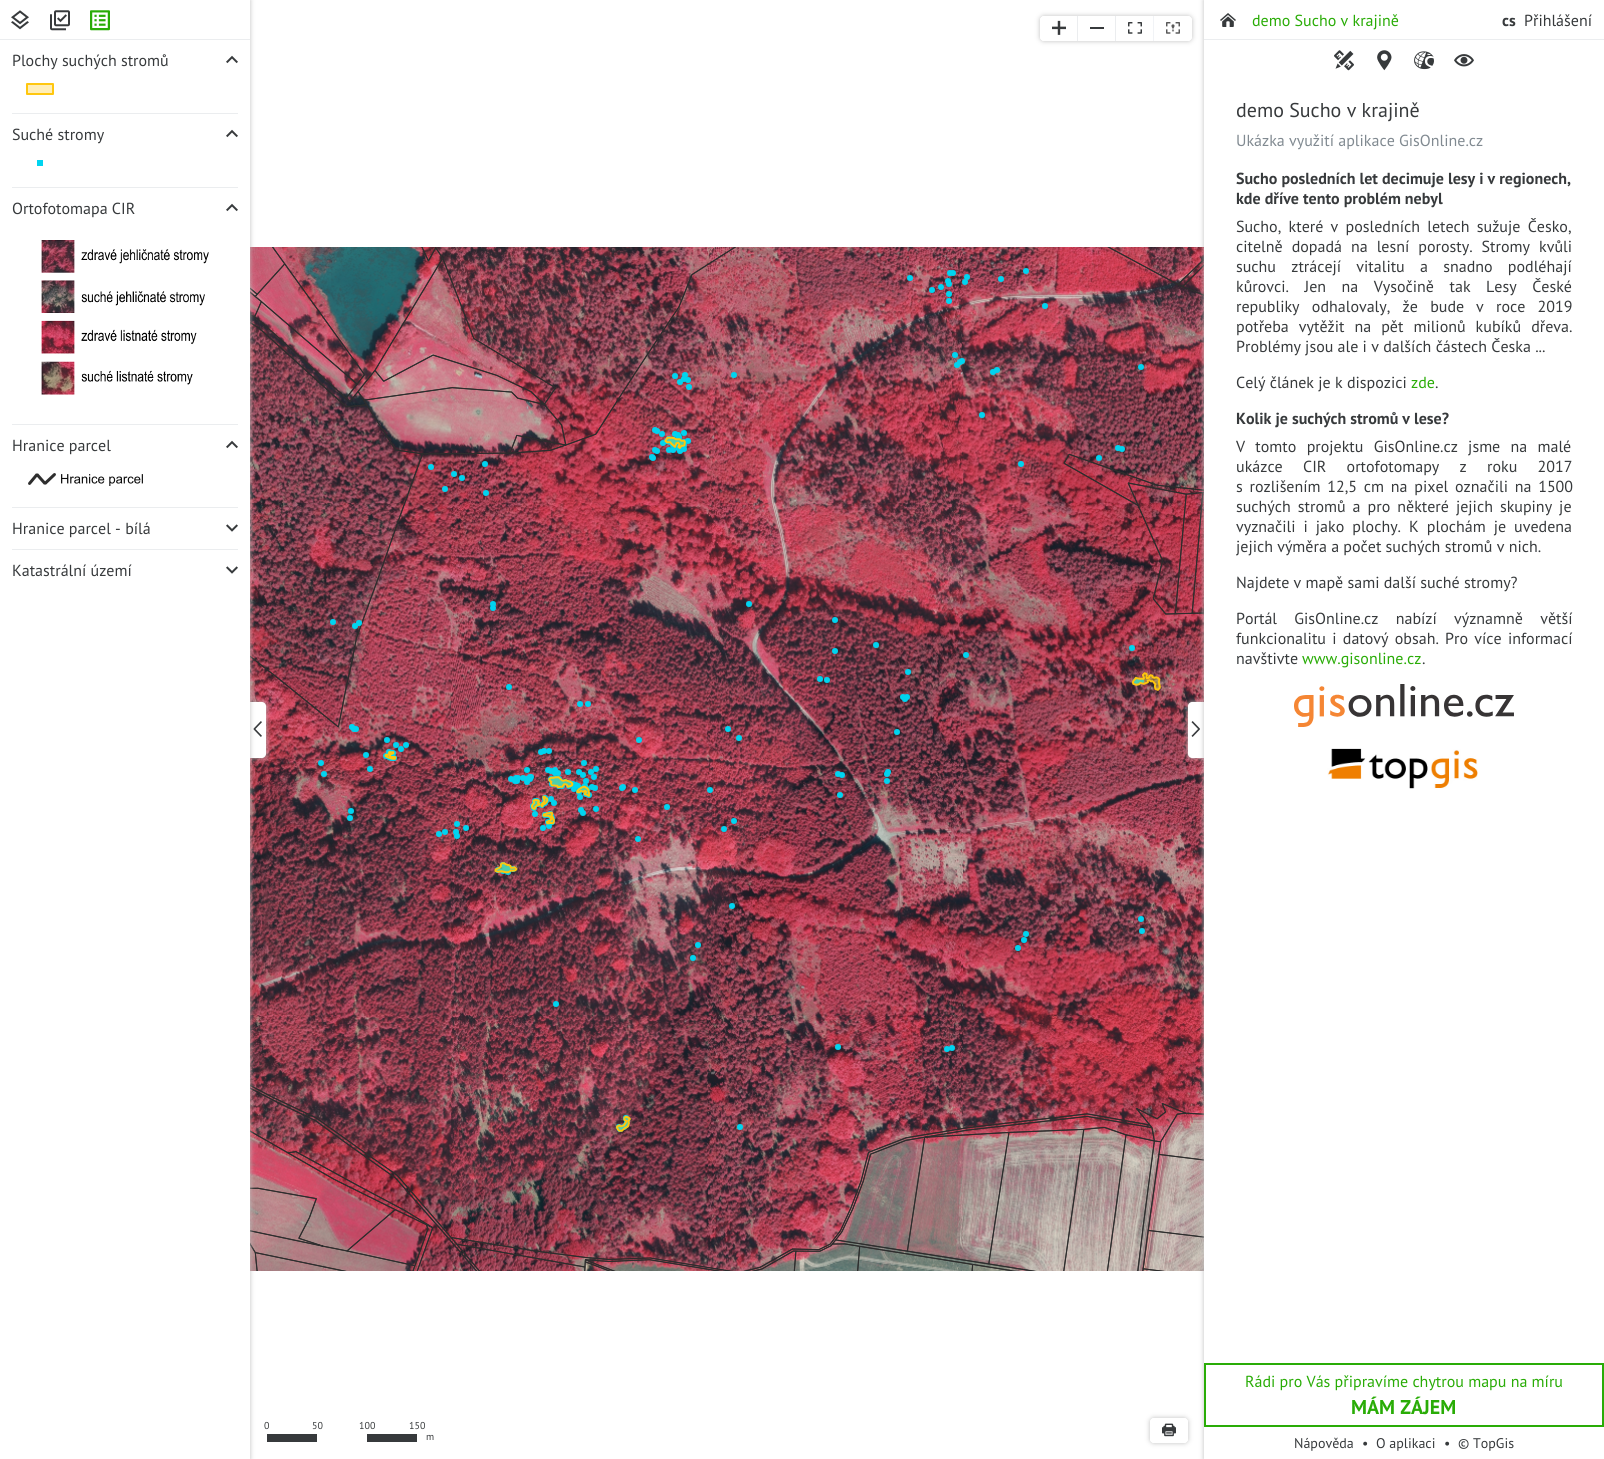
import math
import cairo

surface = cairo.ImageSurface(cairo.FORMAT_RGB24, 1604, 1459)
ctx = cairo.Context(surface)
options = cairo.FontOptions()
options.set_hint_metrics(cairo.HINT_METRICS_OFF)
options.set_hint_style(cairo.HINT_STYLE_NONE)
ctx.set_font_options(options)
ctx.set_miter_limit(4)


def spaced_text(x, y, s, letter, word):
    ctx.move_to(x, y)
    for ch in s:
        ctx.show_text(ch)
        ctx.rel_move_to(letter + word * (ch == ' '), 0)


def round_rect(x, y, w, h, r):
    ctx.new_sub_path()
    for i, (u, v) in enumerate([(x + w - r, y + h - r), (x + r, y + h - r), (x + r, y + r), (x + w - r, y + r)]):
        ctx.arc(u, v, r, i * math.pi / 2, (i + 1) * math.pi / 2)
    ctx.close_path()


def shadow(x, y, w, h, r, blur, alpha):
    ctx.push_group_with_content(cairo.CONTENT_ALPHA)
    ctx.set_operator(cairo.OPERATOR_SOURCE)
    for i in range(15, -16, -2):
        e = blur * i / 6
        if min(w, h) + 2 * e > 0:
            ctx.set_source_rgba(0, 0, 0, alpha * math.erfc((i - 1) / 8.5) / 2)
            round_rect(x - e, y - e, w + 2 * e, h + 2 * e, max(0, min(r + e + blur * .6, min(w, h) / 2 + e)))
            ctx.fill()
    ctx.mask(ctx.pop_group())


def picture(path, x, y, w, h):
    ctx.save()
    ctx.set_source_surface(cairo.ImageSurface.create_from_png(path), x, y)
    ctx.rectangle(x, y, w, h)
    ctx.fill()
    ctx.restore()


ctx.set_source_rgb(1, 1, 1)
ctx.paint()
picture("img21.png", 250, 247, 954, 1024)
ctx.set_source_rgb(0.749, 0.749, 0.749)
shadow(250, 702, 16, 56, 4, 2.5, 1)
ctx.set_source_rgb(1, 1, 1)
ctx.new_path()
ctx.move_to(250, 702)
ctx.line_to(262, 702)
ctx.curve_to(264, 702, 266, 704, 266, 706)
ctx.line_to(266, 754)
ctx.curve_to(266, 756, 264, 758, 262, 758)
ctx.line_to(250, 758)
ctx.close_path()
ctx.fill()
picture("img9.png", 253, 721, 9, 16)
ctx.set_source_rgb(0.749, 0.749, 0.749)
shadow(0, 0, 250, 1459, 0, 2.5, 1)
ctx.set_source_rgb(1, 1, 1)
ctx.rectangle(0, 0, 250, 1459)
ctx.fill()
ctx.set_source_rgb(0.918, 0.929, 0.937)
ctx.rectangle(0, 39, 250, 1)
ctx.fill()
picture("img1.png", 11, 10, 18, 20)
picture("img2.png", 50, 10, 20, 21)
picture("img3.png", 90, 10, 20, 21)
ctx.select_font_face("PT Sans")
ctx.set_font_size(16)
ctx.set_source_rgb(0.216, 0.227, 0.235)
ctx.move_to(12, 66)
ctx.show_text("Plochy suchých stromů")
picture("img4.png", 226, 55, 12, 9)
picture("img5.png", 26, 83, 28, 12)
ctx.set_source_rgb(0.918, 0.929, 0.937)
ctx.rectangle(12, 113, 226, 1)
ctx.fill()
ctx.set_source_rgb(0.216, 0.227, 0.235)
ctx.move_to(12, 140)
ctx.show_text("Suché stromy")
picture("img4.png", 226, 129, 12, 9)
ctx.set_source_rgb(0, 0.831, 0.941)
ctx.rectangle(37, 160, 6, 6)
ctx.fill()
ctx.set_source_rgb(0.918, 0.929, 0.937)
ctx.rectangle(12, 187, 226, 1)
ctx.fill()
ctx.set_source_rgb(0.216, 0.227, 0.235)
ctx.move_to(12, 214)
ctx.show_text("Ortofotomapa CIR")
picture("img4.png", 226, 203, 12, 9)
picture("img6.png", 41, 240, 168, 155)
ctx.set_source_rgb(0.918, 0.929, 0.937)
ctx.rectangle(12, 424, 226, 1)
ctx.fill()
ctx.set_source_rgb(0.216, 0.227, 0.235)
ctx.move_to(12, 451)
ctx.show_text("Hranice parcel")
picture("img4.png", 226, 440, 12, 9)
picture("img7.png", 28, 473, 115, 13)
ctx.set_source_rgb(0.918, 0.929, 0.937)
ctx.rectangle(12, 507, 226, 1)
ctx.fill()
ctx.set_source_rgb(0.216, 0.227, 0.235)
ctx.move_to(12, 534)
ctx.show_text("Hranice parcel - bílá")
picture("img8.png", 226, 524, 12, 8)
ctx.set_source_rgb(0.918, 0.929, 0.937)
ctx.rectangle(12, 549, 226, 1)
ctx.fill()
ctx.set_source_rgb(0.216, 0.227, 0.235)
ctx.move_to(12, 576)
ctx.show_text("Katastrální území")
picture("img8.png", 226, 566, 12, 8)
ctx.set_source_rgb(0.749, 0.749, 0.749)
shadow(1188, 702, 16, 56, 4, 2.5, 1)
ctx.set_source_rgb(1, 1, 1)
ctx.new_path()
ctx.move_to(1192, 702)
ctx.line_to(1204, 702)
ctx.line_to(1204, 758)
ctx.line_to(1192, 758)
ctx.curve_to(1190, 758, 1188, 756, 1188, 754)
ctx.line_to(1188, 706)
ctx.curve_to(1188, 704, 1190, 702, 1192, 702)
ctx.close_path()
ctx.fill()
picture("img10.png", 1191, 721, 9, 16)
ctx.set_source_rgb(0.749, 0.749, 0.749)
shadow(1204, 0, 400, 1459, 0, 2.5, 1)
ctx.set_source_rgb(1, 1, 1)
ctx.rectangle(1204, 0, 400, 1459)
ctx.fill()
ctx.set_source_rgb(0.918, 0.929, 0.937)
ctx.rectangle(1204, 39, 400, 1)
ctx.fill()
picture("img11.png", 1220, 13, 16, 14)
ctx.set_source_rgb(0.161, 0.675, 0.027)
ctx.move_to(1252, 26)
ctx.show_text("demo Sucho v krajině")
ctx.select_font_face("PT Sans", cairo.FONT_SLANT_NORMAL, cairo.FONT_WEIGHT_BOLD)
ctx.set_source_rgb(0.216, 0.227, 0.235)
ctx.move_to(1502, 26)
ctx.show_text("cs")
ctx.select_font_face("PT Sans")
ctx.move_to(1524, 26)
ctx.show_text("Přihlášení")
picture("img12.png", 1334, 50, 20, 21)
picture("img13.png", 1377, 50, 15, 21)
picture("img14.png", 1414, 51, 20, 19)
picture("img15.png", 1454, 54, 20, 13)
ctx.set_font_size(20)
ctx.move_to(1236, 117)
ctx.show_text("demo Sucho v krajině")
ctx.set_font_size(16)
ctx.set_source_rgb(0.506, 0.541, 0.569)
ctx.move_to(1236, 146)
ctx.show_text("Ukázka využití aplikace GisOnline.cz")
ctx.select_font_face("PT Sans", cairo.FONT_SLANT_NORMAL, cairo.FONT_WEIGHT_BOLD)
ctx.set_source_rgb(0.216, 0.227, 0.235)
ctx.move_to(1236, 184)
ctx.show_text("Sucho posledních let decimuje lesy i v regionech,")
ctx.move_to(1236, 204)
ctx.show_text("kde dříve tento problém nebyl")
ctx.select_font_face("PT Sans")
spaced_text(1236, 232, "Sucho, které v posledních letech sužuje Česko,", 0, 3)
spaced_text(1236, 252, "citelně dopadá na lesní porosty. Stromy kvůli", 0, 4.75)
spaced_text(1236, 272, "suchu ztrácejí vitalitu a snadno podléhají", 0, 11)
spaced_text(1236, 292, "kůrovci. Jen na Vysočině tak Lesy České", 0, 11.25)
spaced_text(1236, 312, "republiky odhalovaly, že bude", 0, 8)
spaced_text(1476, 312, "v roce 2019", 0, 8)
spaced_text(1236, 332, "potřeba vytěžit na pět milionů kubíků dřeva.", 0, 5.75)
ctx.move_to(1236, 352)
ctx.show_text("Problémy jsou ale i v dalších částech Česka ...")
ctx.move_to(1236, 388)
ctx.show_text("Celý článek je k dispozici")
ctx.set_source_rgb(0.161, 0.675, 0.027)
ctx.move_to(1411, 388)
ctx.show_text("zde")
ctx.set_source_rgb(0.216, 0.227, 0.235)
ctx.move_to(1435, 388)
ctx.show_text(".")
ctx.select_font_face("PT Sans", cairo.FONT_SLANT_NORMAL, cairo.FONT_WEIGHT_BOLD)
ctx.move_to(1236, 424)
ctx.show_text("Kolik je suchých stromů v lese?")
ctx.select_font_face("PT Sans")
spaced_text(1236, 452, "V tomto projektu GisOnline.cz jsme na malé", 0, 6)
spaced_text(1236, 472, "ukázce CIR ortofotomapy z roku 2017", 0, 16)
spaced_text(1236, 492, "s rozlišením 12,5 cm na pixel označili na 1500", 0, 2.5)
spaced_text(1236, 512, "suchých stromů a pro některé jejich skupiny je", 0, 2.75)
spaced_text(1236, 532, "vyznačili i jako plochy. K plochám je uvedena", 0, 3.75)
ctx.move_to(1236, 552)
ctx.show_text("jejich výměra a počet suchých stromů v nich.")
ctx.move_to(1236, 588)
ctx.show_text("Najdete v mapě sami další suché stromy?")
spaced_text(1236, 624, "Portál GisOnline.cz nabízí významně větší", 0, 13)
spaced_text(1236, 644, "funkcionalitu i datový obsah. Pro více informací", 0, 2)
ctx.move_to(1236, 664)
ctx.show_text("navštivte")
ctx.set_source_rgb(0.161, 0.675, 0.027)
ctx.move_to(1302, 664)
ctx.show_text("www.gisonline.cz")
ctx.set_source_rgb(0.216, 0.227, 0.235)
ctx.move_to(1422, 664)
ctx.show_text(".")
picture("img16.png", 1294, 684, 220, 43)
picture("img17.png", 1327, 748, 151, 41)
ctx.rectangle(1205, 1364, 398, 62)
ctx.set_source_rgb(0.161, 0.675, 0.027)
ctx.stroke()
ctx.move_to(1245, 1387)
ctx.show_text("Rádi pro Vás připravíme chytrou mapu na míru")
ctx.select_font_face("PT Sans", cairo.FONT_SLANT_NORMAL, cairo.FONT_WEIGHT_BOLD)
ctx.set_font_size(20)
ctx.move_to(1351, 1414)
ctx.show_text("MÁM ZÁJEM")
ctx.select_font_face("PT Sans")
ctx.set_font_size(14)
ctx.set_source_rgb(0.216, 0.227, 0.235)
ctx.move_to(1294, 1448)
ctx.show_text("Nápověda")
ctx.move_to(1362, 1448)
ctx.show_text("•")
ctx.move_to(1376, 1448)
ctx.show_text("O aplikaci")
ctx.move_to(1444, 1448)
ctx.show_text("•")
ctx.move_to(1458, 1448)
ctx.show_text("© TopGis")
ctx.save()
ctx.set_fill_rule(cairo.FILL_RULE_EVEN_ODD)
ctx.new_path()
ctx.move_to(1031, 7)
ctx.line_to(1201, 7)
ctx.line_to(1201, 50)
ctx.line_to(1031, 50)
ctx.close_path()
ctx.move_to(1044, 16)
ctx.line_to(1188, 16)
ctx.curve_to(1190, 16, 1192, 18, 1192, 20)
ctx.line_to(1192, 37)
ctx.curve_to(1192, 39, 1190, 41, 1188, 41)
ctx.line_to(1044, 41)
ctx.curve_to(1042, 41, 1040, 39, 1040, 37)
ctx.line_to(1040, 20)
ctx.curve_to(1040, 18, 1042, 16, 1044, 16)
ctx.close_path()
ctx.clip()
ctx.set_source_rgb(0.749, 0.749, 0.749)
shadow(1040, 16, 152, 25, 4, 2.5, 1)
ctx.restore()
ctx.set_source_rgba(1, 1, 1, 0.85)
ctx.new_path()
ctx.move_to(1044, 16)
ctx.line_to(1078, 16)
ctx.line_to(1078, 41)
ctx.line_to(1044, 41)
ctx.curve_to(1042, 41, 1040, 39, 1040, 37)
ctx.line_to(1040, 20)
ctx.curve_to(1040, 18, 1042, 16, 1044, 16)
ctx.close_path()
ctx.fill()
picture("img18.png", 1052, 20, 14, 15)
ctx.set_source_rgb(0.918, 0.929, 0.937)
ctx.rectangle(1077, 16, 1, 25)
ctx.fill()
ctx.set_source_rgb(0.216, 0.227, 0.235)
ctx.rectangle(1090, 27, 14, 2)
ctx.fill()
ctx.set_source_rgb(0.918, 0.929, 0.937)
ctx.rectangle(1115, 16, 1, 25)
ctx.fill()
picture("img19.png", 1128, 22, 14, 12)
ctx.set_source_rgba(1, 1, 1, 0.55)
ctx.new_path()
ctx.move_to(1154, 16)
ctx.line_to(1188, 16)
ctx.curve_to(1190, 16, 1192, 18, 1192, 20)
ctx.line_to(1192, 37)
ctx.curve_to(1192, 39, 1190, 41, 1188, 41)
ctx.line_to(1154, 41)
ctx.close_path()
ctx.fill()
ctx.set_source_rgb(0.945, 0.953, 0.961)
ctx.rectangle(1153, 16, 1, 25)
ctx.fill()
picture("img20.png", 1166, 22, 14, 12)
ctx.set_font_size(10)
ctx.set_source_rgb(0.216, 0.227, 0.235)
ctx.move_to(264, 1429)
ctx.show_text("0")
ctx.rectangle(267, 1434, 50, 8)
ctx.fill()
ctx.move_to(312, 1429)
ctx.show_text("50")
ctx.move_to(359, 1429)
ctx.show_text("100")
ctx.rectangle(367, 1434, 50, 8)
ctx.fill()
ctx.move_to(409, 1429)
ctx.show_text("150")
ctx.move_to(426, 1440)
ctx.show_text("m")
ctx.save()
ctx.set_fill_rule(cairo.FILL_RULE_EVEN_ODD)
ctx.new_path()
ctx.move_to(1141, 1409)
ctx.line_to(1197, 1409)
ctx.line_to(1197, 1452)
ctx.line_to(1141, 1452)
ctx.close_path()
ctx.move_to(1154, 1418)
ctx.line_to(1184, 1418)
ctx.curve_to(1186, 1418, 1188, 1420, 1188, 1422)
ctx.line_to(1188, 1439)
ctx.curve_to(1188, 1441, 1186, 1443, 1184, 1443)
ctx.line_to(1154, 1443)
ctx.curve_to(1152, 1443, 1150, 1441, 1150, 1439)
ctx.line_to(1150, 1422)
ctx.curve_to(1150, 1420, 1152, 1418, 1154, 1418)
ctx.close_path()
ctx.clip()
ctx.set_source_rgb(0.749, 0.749, 0.749)
shadow(1150, 1418, 38, 25, 4, 2.5, 1)
ctx.restore()
ctx.set_source_rgba(1, 1, 1, 0.85)
round_rect(1150, 1418, 38, 25, 4)
ctx.fill()
picture("img22.png", 1162, 1423, 14, 14)
surface.write_to_png("page.png")
